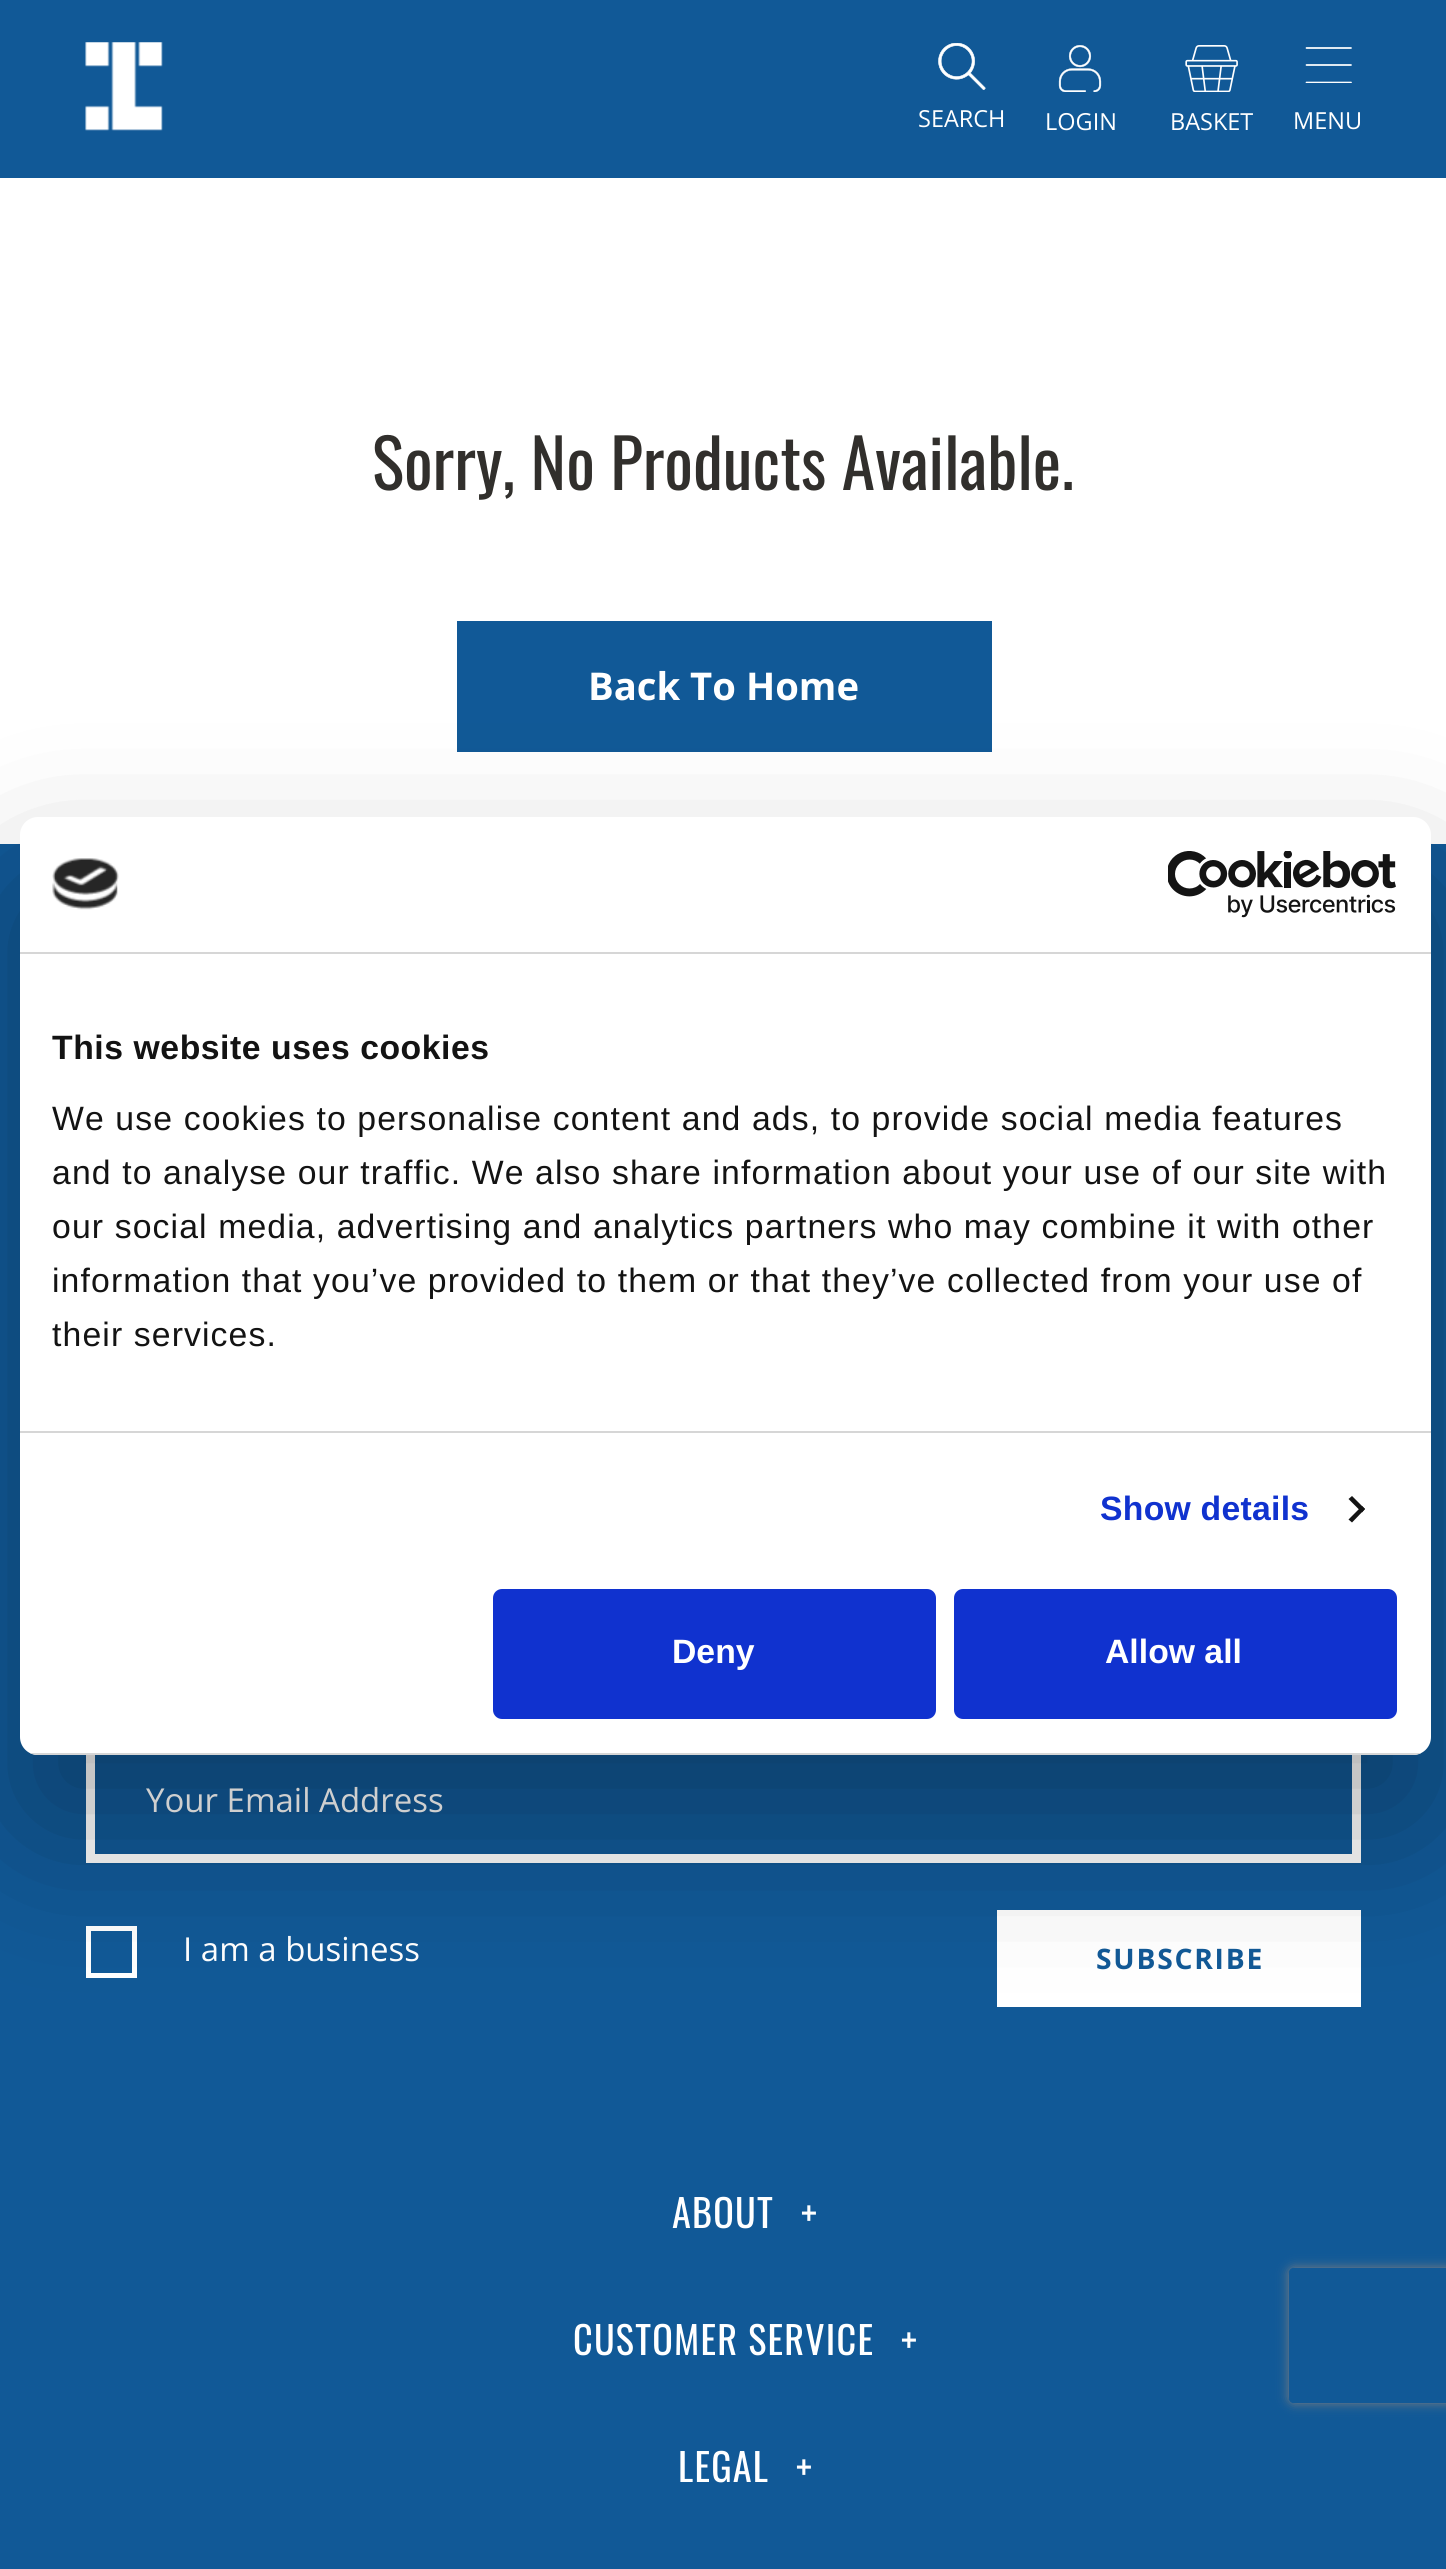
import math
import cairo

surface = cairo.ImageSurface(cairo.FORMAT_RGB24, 1446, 2569)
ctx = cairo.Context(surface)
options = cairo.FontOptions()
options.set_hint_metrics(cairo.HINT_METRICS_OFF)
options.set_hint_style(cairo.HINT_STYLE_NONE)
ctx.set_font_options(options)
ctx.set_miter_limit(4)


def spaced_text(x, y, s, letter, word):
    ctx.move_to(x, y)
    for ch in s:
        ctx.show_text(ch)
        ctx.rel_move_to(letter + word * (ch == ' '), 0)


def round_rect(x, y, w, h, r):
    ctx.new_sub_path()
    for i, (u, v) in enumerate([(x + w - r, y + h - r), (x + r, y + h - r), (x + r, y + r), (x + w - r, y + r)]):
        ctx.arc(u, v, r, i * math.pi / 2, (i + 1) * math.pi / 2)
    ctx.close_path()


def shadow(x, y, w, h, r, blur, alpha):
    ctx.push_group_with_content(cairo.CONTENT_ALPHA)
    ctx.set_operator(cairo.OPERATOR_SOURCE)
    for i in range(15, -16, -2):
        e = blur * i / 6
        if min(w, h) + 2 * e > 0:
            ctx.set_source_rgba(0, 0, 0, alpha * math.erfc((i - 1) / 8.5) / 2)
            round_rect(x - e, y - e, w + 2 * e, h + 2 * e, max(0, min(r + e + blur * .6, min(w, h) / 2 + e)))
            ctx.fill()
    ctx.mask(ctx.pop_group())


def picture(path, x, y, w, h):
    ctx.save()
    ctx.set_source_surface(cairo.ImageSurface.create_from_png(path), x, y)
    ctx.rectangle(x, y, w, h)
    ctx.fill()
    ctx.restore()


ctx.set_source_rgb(1, 1, 1)
ctx.paint()
ctx.set_source_rgb(0.067, 0.349, 0.592)
ctx.rectangle(0, 0, 1446, 178)
ctx.fill()
picture("img1.png", 85, 42, 78, 89)
picture("img2.png", 938, 43, 48, 47)
ctx.select_font_face("Open Sans")
ctx.set_font_size(23.5)
ctx.set_source_rgb(1, 1, 1)
ctx.move_to(918, 127)
ctx.show_text("SEARCH")
picture("img3.png", 1058, 45, 44, 47)
ctx.move_to(1045, 130)
ctx.show_text("LOGIN")
picture("img4.png", 1185, 45, 53, 47)
ctx.move_to(1170, 130)
ctx.show_text("BASKET")
ctx.new_path()
ctx.move_to(1306.5, 48)
ctx.line_to(1351, 48)
ctx.move_to(1306.5, 65)
ctx.line_to(1351, 65)
ctx.set_line_width(1.7)
ctx.set_line_cap(cairo.LINE_CAP_ROUND)
ctx.stroke()
ctx.save()
ctx.rectangle(1294, 47, 67, 36)
ctx.clip()
ctx.new_path()
ctx.move_to(1306.5, 82.5)
ctx.line_to(1351, 82.5)
ctx.stroke()
ctx.restore()
ctx.move_to(1293, 129)
ctx.show_text("MENU")
ctx.select_font_face("Oswald")
ctx.set_font_size(67.5)
ctx.set_source_rgb(0.192, 0.184, 0.173)
ctx.move_to(372, 490)
ctx.show_text("Sorry, No Products Available.")
ctx.set_source_rgb(0.067, 0.349, 0.592)
ctx.rectangle(457, 621, 535, 131)
ctx.fill()
ctx.select_font_face("Open Sans", cairo.FONT_SLANT_NORMAL, cairo.FONT_WEIGHT_BOLD)
ctx.set_font_size(38.25)
ctx.set_source_rgb(1, 1, 1)
ctx.move_to(588, 700)
ctx.show_text("Back To Home")
ctx.set_source_rgb(0.067, 0.349, 0.592)
ctx.rectangle(0, 844, 1446, 1725)
ctx.fill()
ctx.rectangle(90.5, 1739.5, 1266, 119)
ctx.set_source_rgb(1, 1, 1)
ctx.set_line_width(9)
ctx.set_line_cap(cairo.LINE_CAP_BUTT)
ctx.stroke()
ctx.select_font_face("Open Sans")
ctx.set_font_size(33)
ctx.move_to(146, 1812)
ctx.show_text("Your Email Address")
ctx.rectangle(88.5, 1928.5, 46, 47)
ctx.set_line_width(5)
ctx.stroke()
ctx.move_to(183, 1961)
ctx.show_text("I am a business")
ctx.rectangle(997, 1910, 364, 97)
ctx.fill()
ctx.select_font_face("Open Sans", cairo.FONT_SLANT_NORMAL, cairo.FONT_WEIGHT_BOLD)
ctx.set_font_size(28.25)
ctx.set_source_rgb(0.067, 0.349, 0.592)
spaced_text(1096, 1969, "SUBSCRIBE", 1.75, 0)
ctx.select_font_face("Oswald")
ctx.set_font_size(38.25)
ctx.set_source_rgb(1, 1, 1)
spaced_text(672, 2228, "ABOUT", 1.2, 0)
spaced_text(801, 2229, "+", 1.2, 0)
spaced_text(573, 2355, "CUSTOMER SERVICE", 1.2, 0)
spaced_text(901, 2356, "+", 1.2, 0)
spaced_text(678, 2482, "LEGAL", 1.2, 0)
spaced_text(796, 2483, "+", 1.2, 0)
ctx.set_source_rgb(0, 0, 0)
shadow(20, 889, 1411, 938, 18, 76.5, 0.3)
ctx.set_source_rgb(1, 1, 1)
round_rect(20, 817, 1411, 938, 18)
ctx.fill()
ctx.set_source_rgb(0.839, 0.839, 0.839)
ctx.rectangle(20, 952, 1411, 2)
ctx.fill()
picture("img5.png", 52, 858, 67, 52)
picture("img6.png", 1168, 851, 228, 67)
ctx.rectangle(20, 1431, 1411, 2)
ctx.fill()
ctx.select_font_face("Liberation Sans", cairo.FONT_SLANT_NORMAL, cairo.FONT_WEIGHT_BOLD)
ctx.set_font_size(33.75)
ctx.set_source_rgb(0.078, 0.078, 0.078)
spaced_text(52, 1059, "This website uses cookies", 0.55, 0)
ctx.select_font_face("Liberation Sans")
spaced_text(52, 1130, "We use cookies to personalise content and ads, to provide social media features", 1.12, 0)
spaced_text(52, 1184, "and to analyse our traffic. We also share information about your use of our site with", 1.12, 0)
spaced_text(52, 1238, "our social media, advertising and analytics partners who may combine it with other", 1.12, 0)
spaced_text(52, 1292, "information that you’ve provided to them or that they’ve collected from your use of", 1.12, 0)
spaced_text(52, 1346, "their services.", 1.12, 0)
ctx.select_font_face("Liberation Sans", cairo.FONT_SLANT_NORMAL, cairo.FONT_WEIGHT_BOLD)
ctx.set_source_rgb(0.063, 0.196, 0.812)
spaced_text(1100, 1520, "Show details", 0.25, 0)
ctx.set_source_rgb(0.078, 0.078, 0.078)
ctx.new_path()
ctx.move_to(1352, 1496)
ctx.line_to(1365, 1509)
ctx.line_to(1362, 1512.5)
ctx.line_to(1348.5, 1499)
ctx.close_path()
ctx.fill()
ctx.new_path()
ctx.move_to(1362, 1506)
ctx.line_to(1365, 1509)
ctx.line_to(1352, 1522.5)
ctx.line_to(1348.5, 1519.5)
ctx.close_path()
ctx.fill()
ctx.save()
round_rect(20, 817, 1411, 938, 18)
ctx.clip()
ctx.set_source_rgb(0.839, 0.839, 0.839)
ctx.rectangle(30, 1753, 1391, 2)
ctx.fill()
ctx.restore()
ctx.set_source_rgb(0.063, 0.196, 0.812)
round_rect(495.5, 1591.5, 438, 125, 6.5)
ctx.fill_preserve()
ctx.stroke()
ctx.set_source_rgb(1, 1, 1)
ctx.move_to(672, 1663)
ctx.show_text("Deny")
ctx.set_source_rgb(0.063, 0.196, 0.812)
round_rect(956.5, 1591.5, 438, 125, 6.5)
ctx.fill_preserve()
ctx.stroke()
ctx.set_source_rgb(1, 1, 1)
ctx.move_to(1105, 1663)
ctx.show_text("Allow all")
ctx.save()
ctx.set_fill_rule(cairo.FILL_RULE_EVEN_ODD)
ctx.new_path()
ctx.move_to(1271, 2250)
ctx.line_to(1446, 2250)
ctx.line_to(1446, 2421)
ctx.line_to(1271, 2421)
ctx.close_path()
ctx.move_to(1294, 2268)
ctx.line_to(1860, 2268)
ctx.curve_to(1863, 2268, 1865, 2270, 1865, 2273)
ctx.line_to(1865, 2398)
ctx.curve_to(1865, 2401, 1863, 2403, 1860, 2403)
ctx.line_to(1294, 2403)
ctx.curve_to(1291, 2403, 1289, 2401, 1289, 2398)
ctx.line_to(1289, 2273)
ctx.curve_to(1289, 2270, 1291, 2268, 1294, 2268)
ctx.close_path()
ctx.clip()
ctx.set_source_rgb(0.502, 0.502, 0.502)
shadow(1289, 2268, 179, 135, 5, 5.5, 1)
ctx.restore()
surface.write_to_png("page.png")
